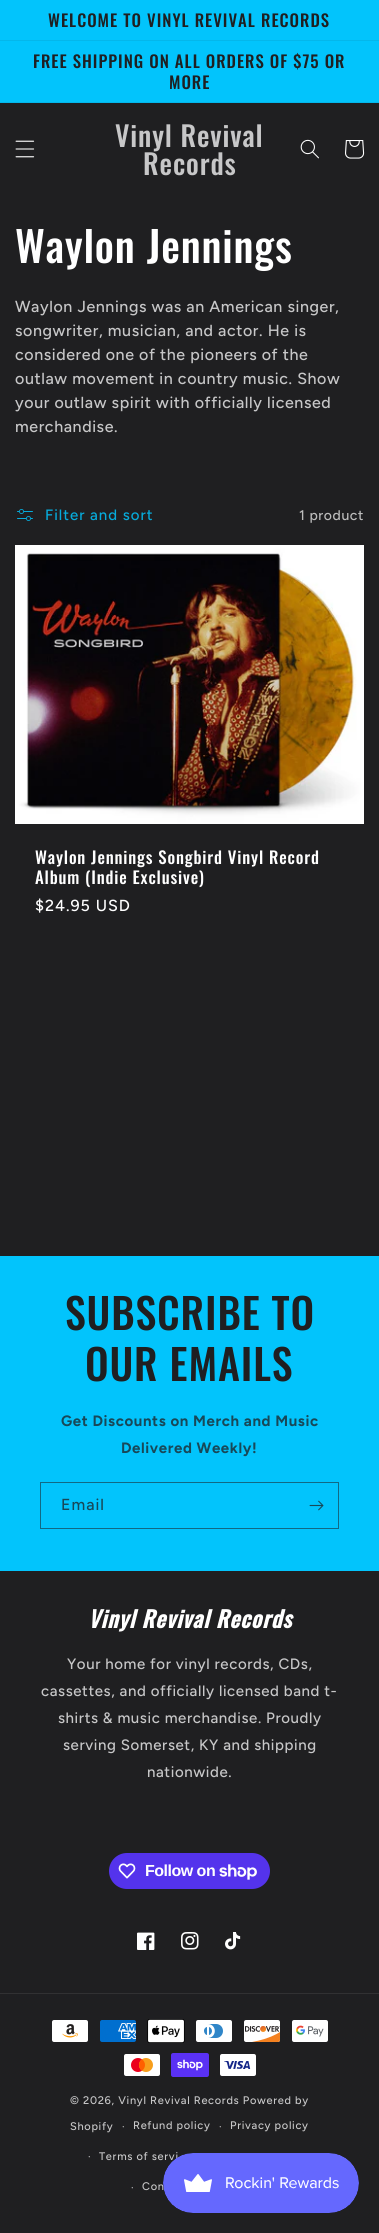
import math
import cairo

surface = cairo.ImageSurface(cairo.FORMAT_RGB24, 379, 2233)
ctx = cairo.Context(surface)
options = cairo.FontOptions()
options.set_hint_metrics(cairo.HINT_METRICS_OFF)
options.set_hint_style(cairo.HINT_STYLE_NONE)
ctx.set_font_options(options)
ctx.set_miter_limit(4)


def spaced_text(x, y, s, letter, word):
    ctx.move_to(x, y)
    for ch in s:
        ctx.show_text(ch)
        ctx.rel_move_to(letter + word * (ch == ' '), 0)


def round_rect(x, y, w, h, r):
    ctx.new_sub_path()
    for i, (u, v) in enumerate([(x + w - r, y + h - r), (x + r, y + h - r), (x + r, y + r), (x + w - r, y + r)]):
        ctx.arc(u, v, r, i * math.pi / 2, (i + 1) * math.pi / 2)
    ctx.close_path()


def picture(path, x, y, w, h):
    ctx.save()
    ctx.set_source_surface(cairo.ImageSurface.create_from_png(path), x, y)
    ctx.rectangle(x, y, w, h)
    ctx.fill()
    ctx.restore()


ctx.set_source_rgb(0.122, 0.122, 0.129)
ctx.paint()
ctx.set_source_rgb(0.008, 0.769, 0.988)
ctx.rectangle(0, 0, 379, 40)
ctx.fill()
ctx.set_source_rgb(0.016, 0.718, 0.918)
ctx.rectangle(0, 40, 379, 1)
ctx.fill()
ctx.select_font_face("Oswald Medium")
ctx.set_font_size(16.75)
ctx.set_source_rgb(0.122, 0.122, 0.129)
spaced_text(48, 27, "WELCOME TO VINYL REVIVAL RECORDS", 1, 0)
ctx.set_source_rgb(0.008, 0.769, 0.988)
ctx.rectangle(0, 41, 379, 61)
ctx.fill()
ctx.set_source_rgb(0.016, 0.718, 0.918)
ctx.rectangle(0, 102, 379, 1)
ctx.fill()
ctx.set_source_rgb(0.122, 0.122, 0.129)
spaced_text(33, 68, "FREE SHIPPING ON ALL ORDERS OF $75 OR", 1, 0)
spaced_text(169, 89, "MORE", 1, 0)
picture("img1.png", 15, 140, 20, 18)
ctx.set_font_size(28)
ctx.set_source_rgb(0.78, 0.78, 0.784)
spaced_text(115, 147, "Vinyl Revival", 0.85, 0)
spaced_text(143, 175, "Records", 0.85, 0)
picture("img2.png", 300, 139, 19, 20)
picture("img3.png", 345, 140, 20, 19)
ctx.set_font_size(42)
ctx.set_source_rgb(1, 1, 1)
spaced_text(15, 263, "Waylon Jennings", 0.85, 0)
ctx.select_font_face("Figtree Medium")
ctx.set_font_size(16)
ctx.set_source_rgb(0.78, 0.78, 0.784)
spaced_text(15, 312, "Waylon Jennings was an American singer,", 0.6, 0)
spaced_text(15, 336, "songwriter, musician, and actor. He is", 0.6, 0)
spaced_text(15, 360, "considered one of the pioneers of the", 0.6, 0)
spaced_text(15, 384, "outlaw movement in country music. Show", 0.6, 0)
spaced_text(15, 408, "your outlaw spirit with officially licensed", 0.6, 0)
spaced_text(15, 432, "merchandise.", 0.6, 0)
picture("img4.png", 17, 509, 16, 12)
ctx.set_font_size(15)
ctx.set_source_rgb(0.024, 0.671, 0.859)
spaced_text(45, 520, "Filter and sort", 1, 0)
ctx.set_font_size(14)
ctx.set_source_rgb(0.737, 0.737, 0.737)
spaced_text(299, 520, "1 product", 0.6, 0)
picture("img5.png", 15, 545, 349, 279)
ctx.select_font_face("Oswald Medium")
ctx.set_font_size(16.75)
ctx.set_source_rgb(1, 1, 1)
spaced_text(35, 864, "Waylon Jennings Songbird Vinyl Record", 0.85, 0)
spaced_text(35, 884, "Album (Indie Exclusive)", 0.85, 0)
ctx.select_font_face("Figtree Medium")
ctx.set_font_size(16)
spaced_text(35, 911, "$24.95 USD", 1, 0)
ctx.set_source_rgb(0.008, 0.769, 0.988)
ctx.rectangle(0, 1256, 379, 315)
ctx.fill()
ctx.select_font_face("Oswald Medium")
ctx.set_font_size(42)
ctx.set_source_rgb(0.122, 0.122, 0.129)
spaced_text(65, 1330, "SUBSCRIBE TO", 0.85, 0)
spaced_text(85, 1381, "OUR EMAILS", 0.85, 0)
ctx.select_font_face("Figtree", cairo.FONT_SLANT_NORMAL, cairo.FONT_WEIGHT_BOLD)
ctx.set_font_size(15)
ctx.set_source_rgb(0.094, 0.282, 0.345)
spaced_text(61, 1426, "Get Discounts on Merch and Music", 0.6, 0)
spaced_text(121, 1453, "Delivered Weekly!", 0.6, 0)
ctx.rectangle(40.5, 1482.5, 298, 46)
ctx.set_source_rgb(0.071, 0.412, 0.518)
ctx.set_line_width(1)
ctx.stroke()
ctx.select_font_face("Figtree Medium")
ctx.set_font_size(16)
ctx.set_source_rgb(0.094, 0.282, 0.345)
spaced_text(61, 1510, "Email", 1, 0)
picture("img6.png", 309, 1500, 15, 11)
ctx.select_font_face("Oswald", cairo.FONT_SLANT_ITALIC, cairo.FONT_WEIGHT_BOLD)
ctx.set_font_size(22.5)
ctx.set_source_rgb(1, 1, 1)
spaced_text(88, 1628, "Vinyl Revival Records", 0.85, 0)
ctx.select_font_face("Figtree Medium")
ctx.set_font_size(15)
ctx.set_source_rgb(0.78, 0.78, 0.784)
spaced_text(67, 1669, "Your home for vinyl records, CDs,", 0.6, 0)
spaced_text(41, 1696, "cassettes, and officially licensed band t-", 0.6, 0)
spaced_text(58, 1723, "shirts & music merchandise. Proudly", 0.6, 0)
spaced_text(63, 1750, "serving Somerset, KY and shipping", 0.6, 0)
spaced_text(147, 1777, "nationwide.", 0.6, 0)
ctx.set_source_rgb(0.329, 0.2, 0.922)
round_rect(109, 1853, 161, 36, 18)
ctx.fill()
picture("img7.png", 118, 1863, 18, 16)
ctx.select_font_face("Liberation Sans", cairo.FONT_SLANT_NORMAL, cairo.FONT_WEIGHT_BOLD)
ctx.set_font_size(16)
ctx.set_source_rgb(1, 1, 1)
spaced_text(145, 1876, "Follow on", -0.5, 0)
picture("img8.png", 219, 1864, 38, 16)
picture("img9.png", 137, 1932, 18, 18)
picture("img10.png", 181, 1932, 18, 18)
picture("img11.png", 225, 1932, 16, 18)
ctx.set_source_rgb(0.192, 0.192, 0.2)
ctx.rectangle(0, 1993, 379, 1)
ctx.fill()
picture("img12.png", 52, 2020, 36, 22)
picture("img13.png", 100, 2020, 36, 22)
picture("img14.png", 147, 2019, 38, 24)
picture("img15.png", 196, 2020, 36, 22)
picture("img16.png", 244, 2020, 36, 22)
picture("img17.png", 292, 2020, 36, 22)
picture("img18.png", 124, 2054, 36, 22)
picture("img19.png", 171, 2053, 38, 24)
picture("img20.png", 220, 2054, 36, 22)
ctx.select_font_face("Figtree Medium")
ctx.set_font_size(11)
ctx.set_source_rgb(0.78, 0.78, 0.784)
spaced_text(70, 2104, "© 2026, Vinyl Revival Records Powered by", 0.7, 0)
ctx.set_font_size(10)
spaced_text(122, 2130, "·", 0.7, 0)
ctx.set_font_size(11)
spaced_text(133, 2129, "Refund policy", 0.7, 0)
ctx.set_font_size(10)
spaced_text(219, 2130, "·", 0.7, 0)
ctx.set_font_size(11)
spaced_text(230, 2129, "Privacy policy", 0.7, 0)
ctx.set_font_size(10)
spaced_text(88, 2160, "·", 0.7, 0)
ctx.set_font_size(11)
spaced_text(99, 2160, "Terms of servi", 0.7, 0)
ctx.set_font_size(10)
spaced_text(131, 2191, "·", 0.7, 0)
ctx.set_font_size(11)
spaced_text(142, 2190, "Con", 0.7, 0)
spaced_text(70, 2130, "Shopify", 0.7, 0)
picture("img21.png", 163, 2153, 196, 60)
surface.write_to_png("page.png")
